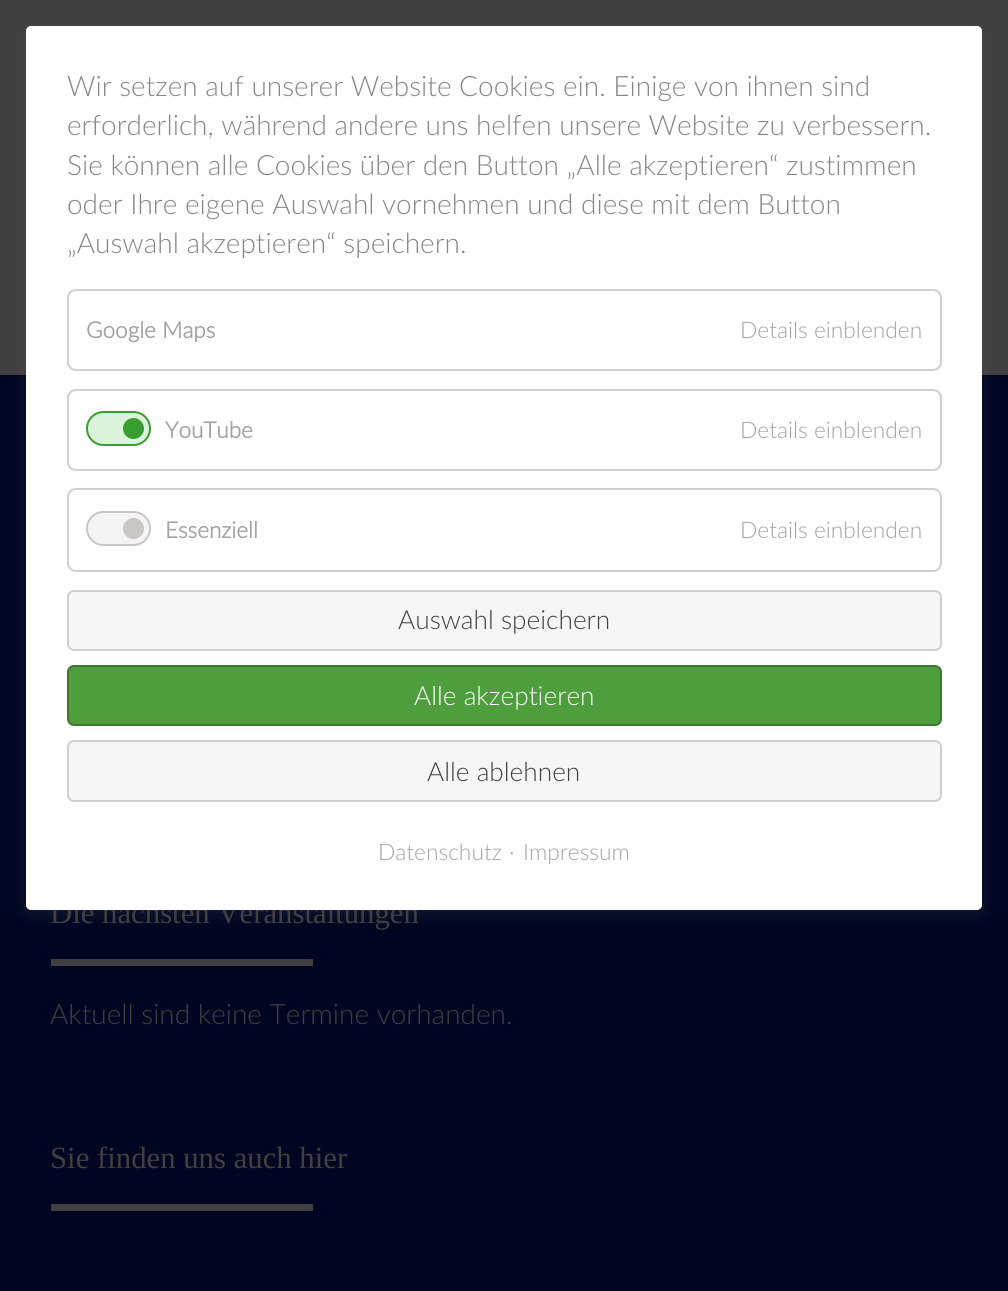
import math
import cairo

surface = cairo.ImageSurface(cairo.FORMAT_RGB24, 1008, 1291)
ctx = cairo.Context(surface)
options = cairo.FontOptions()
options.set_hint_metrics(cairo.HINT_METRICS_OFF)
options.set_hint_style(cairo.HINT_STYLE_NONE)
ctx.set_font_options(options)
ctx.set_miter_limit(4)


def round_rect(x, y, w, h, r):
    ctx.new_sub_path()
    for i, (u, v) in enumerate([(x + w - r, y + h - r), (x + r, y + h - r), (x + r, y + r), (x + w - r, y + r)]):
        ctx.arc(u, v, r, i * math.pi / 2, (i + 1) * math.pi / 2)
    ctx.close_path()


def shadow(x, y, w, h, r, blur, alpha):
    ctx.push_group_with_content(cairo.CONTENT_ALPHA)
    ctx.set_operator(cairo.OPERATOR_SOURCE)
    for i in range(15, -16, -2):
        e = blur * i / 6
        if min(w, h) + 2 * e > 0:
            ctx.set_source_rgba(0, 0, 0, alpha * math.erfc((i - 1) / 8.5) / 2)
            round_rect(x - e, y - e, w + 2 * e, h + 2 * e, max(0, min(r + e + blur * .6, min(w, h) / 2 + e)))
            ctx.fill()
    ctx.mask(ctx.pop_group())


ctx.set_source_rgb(0.251, 0.251, 0.251)
ctx.paint()
ctx.set_source_rgb(0, 0.02, 0.133)
ctx.rectangle(0, 375, 1008, 916)
ctx.fill()
ctx.set_source_rgb(0.388, 0.388, 0.388)
shadow(26, 30, 956, 884, 5, 7, 0.2)
ctx.select_font_face("Liberation Serif")
ctx.set_font_size(30.75)
ctx.set_source_rgb(0.251, 0.251, 0.251)
ctx.move_to(50, 923)
ctx.show_text("Die nächsten Veranstaltungen")
ctx.set_source_rgb(1, 1, 1)
round_rect(26, 26, 956, 884, 5)
ctx.fill()
ctx.select_font_face("Lato Light")
ctx.set_font_size(28)
ctx.set_source_rgb(0.525, 0.525, 0.525)
ctx.move_to(67, 96)
ctx.show_text("Wir setzen auf unserer Website Cookies ein. Einige von ihnen sind")
ctx.move_to(67, 135)
ctx.show_text("erforderlich, während andere uns helfen unsere Website zu verbessern.")
ctx.move_to(67, 175)
ctx.show_text("Sie können alle Cookies über den Button „Alle akzeptieren“ zustimmen")
ctx.move_to(67, 214)
ctx.show_text("oder Ihre eigene Auswahl vornehmen und diese mit dem Button")
ctx.move_to(67, 253)
ctx.show_text("„Auswahl akzeptieren“ speichern.")
round_rect(68, 290, 873, 80, 8)
ctx.set_source_rgb(0.816, 0.816, 0.816)
ctx.stroke()
ctx.select_font_face("Lato", cairo.FONT_SLANT_NORMAL, cairo.FONT_WEIGHT_BOLD)
ctx.set_font_size(22.5)
ctx.set_source_rgb(0.635, 0.635, 0.635)
ctx.move_to(86, 338)
ctx.show_text("Google Maps")
ctx.select_font_face("Lato Light")
ctx.set_font_size(22.75)
ctx.move_to(740, 338)
ctx.show_text("Details einblenden")
round_rect(68, 390, 873, 80, 8)
ctx.set_source_rgb(0.816, 0.816, 0.816)
ctx.stroke()
ctx.set_source_rgb(0.863, 0.953, 0.859)
round_rect(87, 412, 63, 33, 16.5)
ctx.fill_preserve()
ctx.set_source_rgb(0.224, 0.616, 0.196)
ctx.stroke()
ctx.arc(133.5, 428.5, 10.5, 0, 2 * math.pi)
ctx.fill()
ctx.select_font_face("Lato", cairo.FONT_SLANT_NORMAL, cairo.FONT_WEIGHT_BOLD)
ctx.set_font_size(22.5)
ctx.set_source_rgb(0.635, 0.635, 0.635)
ctx.move_to(165, 438)
ctx.show_text("YouTube")
ctx.select_font_face("Lato Light")
ctx.set_font_size(22.75)
ctx.move_to(740, 438)
ctx.show_text("Details einblenden")
round_rect(68, 489, 873, 82, 8)
ctx.set_source_rgb(0.816, 0.816, 0.816)
ctx.stroke()
ctx.set_source_rgb(0.957, 0.957, 0.957)
round_rect(87, 512, 63, 33, 16.5)
ctx.fill_preserve()
ctx.set_source_rgb(0.784, 0.78, 0.773)
ctx.stroke()
ctx.arc(133.5, 528.5, 10.5, 0, 2 * math.pi)
ctx.fill()
ctx.select_font_face("Lato", cairo.FONT_SLANT_NORMAL, cairo.FONT_WEIGHT_BOLD)
ctx.set_font_size(22.5)
ctx.set_source_rgb(0.635, 0.635, 0.635)
ctx.move_to(165, 538)
ctx.show_text("Essenziell")
ctx.select_font_face("Lato Light")
ctx.set_font_size(22.75)
ctx.move_to(740, 538)
ctx.show_text("Details einblenden")
ctx.set_source_rgb(0.961, 0.961, 0.961)
round_rect(68, 591, 873, 59, 6)
ctx.fill_preserve()
ctx.set_source_rgb(0.812, 0.812, 0.812)
ctx.stroke()
ctx.set_font_size(26.25)
ctx.set_source_rgb(0.251, 0.251, 0.251)
ctx.move_to(398, 629)
ctx.show_text("Auswahl speichern")
ctx.set_source_rgb(0.306, 0.62, 0.243)
round_rect(68, 666, 873, 59, 6)
ctx.fill_preserve()
ctx.set_source_rgb(0.243, 0.471, 0.188)
ctx.stroke()
ctx.set_source_rgb(1, 1, 1)
ctx.move_to(414, 705)
ctx.show_text("Alle akzeptieren")
ctx.set_source_rgb(0.961, 0.961, 0.961)
round_rect(68, 741, 873, 60, 6)
ctx.fill_preserve()
ctx.set_source_rgb(0.812, 0.812, 0.812)
ctx.stroke()
ctx.set_source_rgb(0.251, 0.251, 0.251)
ctx.move_to(427, 781)
ctx.show_text("Alle ablehnen")
ctx.set_font_size(22.75)
ctx.set_source_rgb(0.635, 0.635, 0.635)
ctx.move_to(378, 860)
ctx.show_text("Datenschutz")
ctx.move_to(509, 860)
ctx.show_text("·")
ctx.move_to(523, 860)
ctx.show_text("Impressum")
ctx.set_source_rgb(0.251, 0.251, 0.251)
ctx.rectangle(51, 959, 262, 7)
ctx.fill()
ctx.set_font_size(28)
ctx.move_to(50, 1024)
ctx.show_text("Aktuell sind keine Termine vorhanden.")
ctx.select_font_face("Liberation Serif")
ctx.set_font_size(30.75)
ctx.move_to(50, 1168)
ctx.show_text("Sie finden uns auch hier")
ctx.rectangle(51, 1204, 262, 7)
ctx.fill()
surface.write_to_png("page.png")
